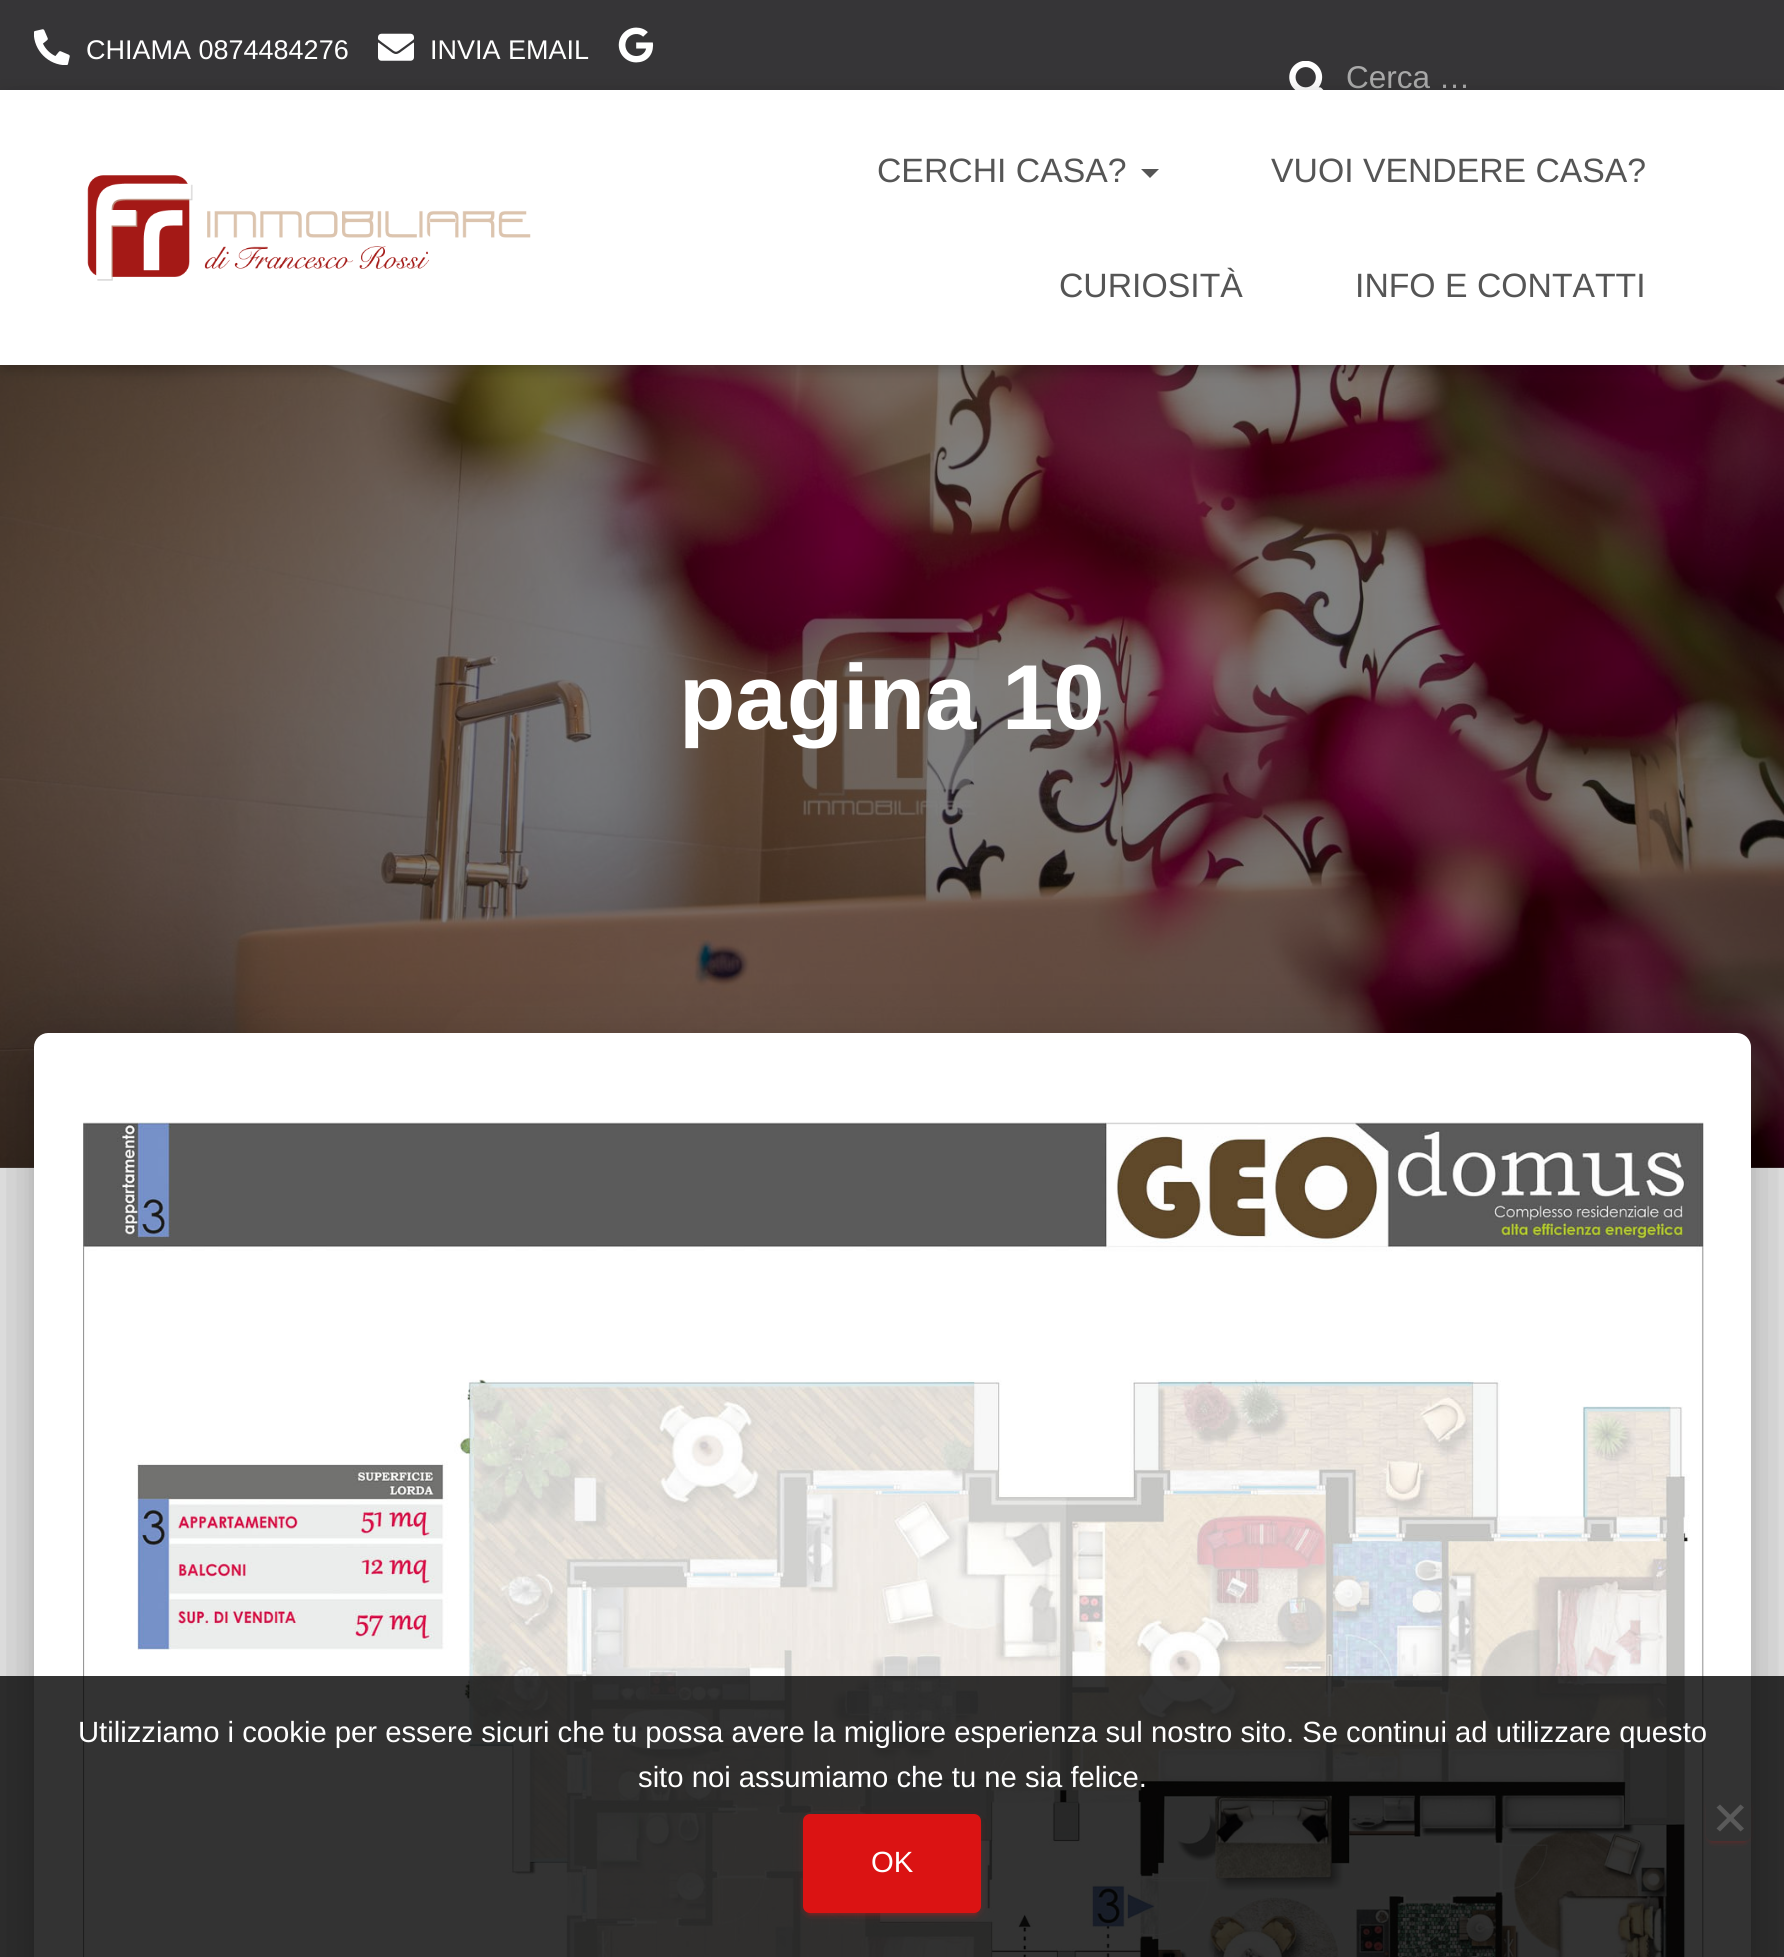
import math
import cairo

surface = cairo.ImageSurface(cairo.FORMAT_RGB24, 1784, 1957)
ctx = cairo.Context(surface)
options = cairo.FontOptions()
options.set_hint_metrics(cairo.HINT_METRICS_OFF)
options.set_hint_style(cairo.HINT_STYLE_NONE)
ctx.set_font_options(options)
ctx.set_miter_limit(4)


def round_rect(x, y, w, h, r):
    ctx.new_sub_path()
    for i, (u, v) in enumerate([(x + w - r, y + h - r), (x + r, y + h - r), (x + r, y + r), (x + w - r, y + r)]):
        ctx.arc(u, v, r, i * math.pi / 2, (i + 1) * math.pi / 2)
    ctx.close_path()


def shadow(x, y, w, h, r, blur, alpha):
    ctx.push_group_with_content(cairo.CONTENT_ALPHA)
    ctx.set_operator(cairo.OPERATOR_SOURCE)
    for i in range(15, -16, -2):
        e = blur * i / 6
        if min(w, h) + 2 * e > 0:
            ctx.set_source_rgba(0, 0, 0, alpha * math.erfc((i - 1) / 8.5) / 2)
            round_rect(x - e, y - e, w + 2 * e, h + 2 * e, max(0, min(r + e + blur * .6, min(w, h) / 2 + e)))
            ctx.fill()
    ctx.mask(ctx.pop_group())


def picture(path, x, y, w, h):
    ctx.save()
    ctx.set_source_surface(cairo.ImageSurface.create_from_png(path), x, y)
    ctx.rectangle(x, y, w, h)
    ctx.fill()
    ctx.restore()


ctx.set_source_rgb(0.898, 0.898, 0.898)
ctx.paint()
ctx.set_source_rgb(0.212, 0.208, 0.216)
ctx.rectangle(0, 0, 1784, 90)
ctx.fill()
picture("img1.png", 34, 29, 36, 36)
ctx.select_font_face("Liberation Sans")
ctx.set_font_size(27)
ctx.set_source_rgb(1, 1, 1)
ctx.move_to(86, 59)
ctx.show_text("CHIAMA 0874484276")
picture("img2.png", 378, 33, 36, 28)
ctx.move_to(430, 59)
ctx.show_text("INVIA EMAIL")
picture("img3.png", 618, 27, 36, 36)
picture("img4.png", 1289, 61, 35, 29)
ctx.set_font_size(31.5)
ctx.set_source_rgb(0.667, 0.667, 0.667)
ctx.move_to(1346, 88)
ctx.show_text("Cerca …")
picture("img6.png", 0, 365, 1784, 803)
ctx.set_source_rgba(0, 0, 0, 0.5)
ctx.rectangle(0, 365, 1784, 803)
ctx.fill()
ctx.set_source_rgb(0, 0, 0)
shadow(5, 104, 1775, 265, 0, 5.5, 0.1)
shadow(0, 92, 1784, 275, 0, 11, 0.12)
shadow(14, 106, 1757, 247, 0, 11, 0.42)
ctx.set_source_rgb(1, 1, 1)
ctx.rectangle(0, 90, 1784, 275)
ctx.fill()
picture("img5.png", 87, 175, 444, 106)
ctx.set_font_size(33.75)
ctx.set_source_rgb(0.333, 0.333, 0.333)
ctx.move_to(877, 182)
ctx.show_text("CERCHI CASA?")
ctx.new_path()
ctx.move_to(1141, 169)
ctx.line_to(1159, 169)
ctx.line_to(1150, 178)
ctx.close_path()
ctx.fill()
ctx.move_to(1271, 182)
ctx.show_text("VUOI VENDERE CASA?")
ctx.move_to(1059, 297)
ctx.show_text("CURIOSITÀ")
ctx.move_to(1355, 297)
ctx.show_text("INFO E CONTATTI")
ctx.select_font_face("Liberation Sans", cairo.FONT_SLANT_NORMAL, cairo.FONT_WEIGHT_BOLD)
ctx.set_font_size(92.25)
ctx.set_source_rgb(1, 1, 1)
ctx.move_to(679, 729)
ctx.show_text("pagina 10")
ctx.set_source_rgb(0, 0, 0)
shadow(45, 1062, 1694, 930, 2, 11, 0.2)
shadow(23, 1035, 1739, 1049, 25, 34, 0.12)
shadow(29, 1064, 1726, 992, 18, 27, 0.14)
ctx.set_source_rgb(1, 1, 1)
ctx.new_path()
ctx.move_to(48, 1033)
ctx.line_to(1737, 1033)
ctx.curve_to(1744.5, 1033, 1751, 1039.5, 1751, 1047)
ctx.line_to(1751, 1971)
ctx.line_to(34, 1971)
ctx.line_to(34, 1047)
ctx.curve_to(34, 1039.5, 40.5, 1033, 48, 1033)
ctx.close_path()
ctx.fill()
picture("img7.png", 83, 1122, 1621, 835)
ctx.set_source_rgba(0, 0, 0, 0.8)
ctx.rectangle(0, 1676, 1784, 281)
ctx.fill()
ctx.select_font_face("Liberation Sans")
ctx.set_font_size(29.25)
ctx.set_source_rgb(1, 1, 1)
ctx.move_to(78, 1742)
ctx.show_text("Utilizziamo i cookie per essere sicuri che tu possa avere la migliore esperienza sul nostro sito. Se continui ad utilizzare questo")
ctx.move_to(638, 1787)
ctx.show_text("sito noi assumiamo che tu ne sia felice.")
ctx.save()
ctx.set_fill_rule(cairo.FILL_RULE_EVEN_ODD)
ctx.new_path()
ctx.move_to(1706, 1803)
ctx.line_to(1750, 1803)
ctx.line_to(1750, 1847)
ctx.line_to(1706, 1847)
ctx.close_path()
ctx.move_to(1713, 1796)
ctx.line_to(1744, 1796)
ctx.curve_to(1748, 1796, 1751, 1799, 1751, 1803)
ctx.line_to(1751, 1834)
ctx.curve_to(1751, 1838, 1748, 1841, 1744, 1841)
ctx.line_to(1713, 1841)
ctx.curve_to(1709, 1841, 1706, 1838, 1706, 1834)
ctx.line_to(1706, 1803)
ctx.curve_to(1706, 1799, 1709, 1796, 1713, 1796)
ctx.close_path()
ctx.clip()
ctx.set_source_rgb(0.529, 0.137, 0.137)
shadow(1710, 1807, 36, 36, 2, 1, 0.2)
ctx.restore()
ctx.save()
ctx.set_fill_rule(cairo.FILL_RULE_EVEN_ODD)
ctx.new_path()
ctx.move_to(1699, 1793)
ctx.line_to(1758, 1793)
ctx.line_to(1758, 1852)
ctx.line_to(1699, 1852)
ctx.close_path()
ctx.move_to(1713, 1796)
ctx.line_to(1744, 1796)
ctx.curve_to(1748, 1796, 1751, 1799, 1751, 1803)
ctx.line_to(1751, 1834)
ctx.curve_to(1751, 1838, 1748, 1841, 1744, 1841)
ctx.line_to(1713, 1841)
ctx.curve_to(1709, 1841, 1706, 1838, 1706, 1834)
ctx.line_to(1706, 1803)
ctx.curve_to(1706, 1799, 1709, 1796, 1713, 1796)
ctx.close_path()
ctx.clip()
ctx.set_source_rgb(0.859, 0.075, 0.075)
shadow(1706, 1800, 45, 45, 7, 2, 0.07)
ctx.restore()
ctx.set_source_rgb(0.353, 0.353, 0.353)
ctx.new_path()
ctx.move_to(1740.5, 1804.5)
ctx.line_to(1744, 1807.5)
ctx.line_to(1720, 1831.5)
ctx.line_to(1716.5, 1828.5)
ctx.close_path()
ctx.fill()
ctx.new_path()
ctx.move_to(1716.5, 1807.5)
ctx.line_to(1720, 1804.5)
ctx.line_to(1744, 1828.5)
ctx.line_to(1740.5, 1831.5)
ctx.close_path()
ctx.fill()
ctx.set_source_rgb(0.859, 0.075, 0.075)
shadow(803, 1816, 178, 99, 7, 5.5, 0.12)
shadow(808, 1825, 169, 90, 2, 1, 0.2)
shadow(803, 1818, 178, 99, 7, 2, 0.14)
ctx.set_source_rgb(0.859, 0.075, 0.075)
round_rect(803, 1814, 178, 99, 7)
ctx.fill()
ctx.set_source_rgb(1, 1, 1)
ctx.move_to(871, 1872)
ctx.show_text("OK")
surface.write_to_png("page.png")
